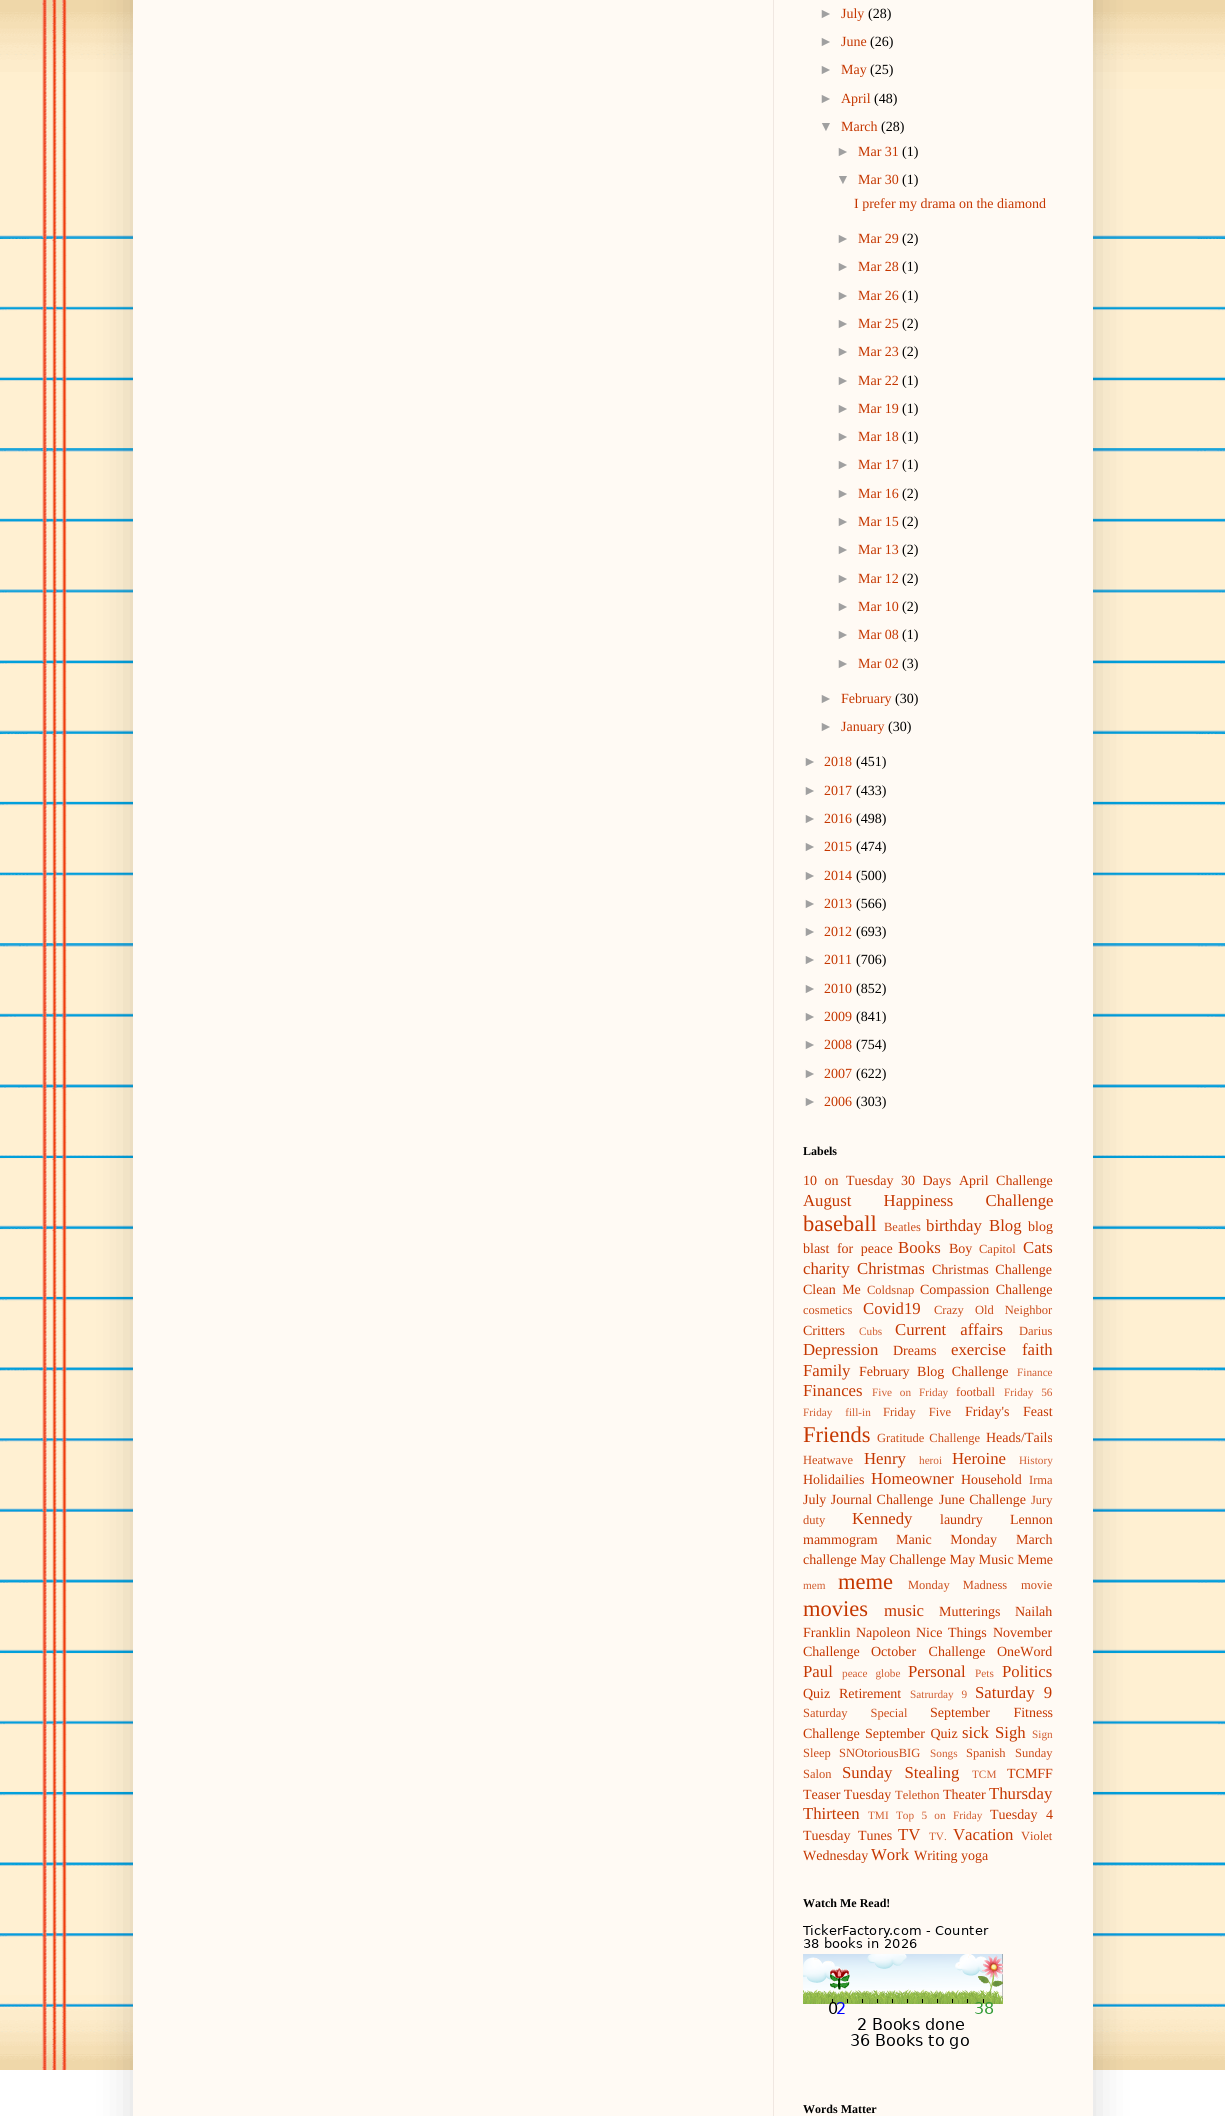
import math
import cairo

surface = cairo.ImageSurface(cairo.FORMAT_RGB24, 1225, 2116)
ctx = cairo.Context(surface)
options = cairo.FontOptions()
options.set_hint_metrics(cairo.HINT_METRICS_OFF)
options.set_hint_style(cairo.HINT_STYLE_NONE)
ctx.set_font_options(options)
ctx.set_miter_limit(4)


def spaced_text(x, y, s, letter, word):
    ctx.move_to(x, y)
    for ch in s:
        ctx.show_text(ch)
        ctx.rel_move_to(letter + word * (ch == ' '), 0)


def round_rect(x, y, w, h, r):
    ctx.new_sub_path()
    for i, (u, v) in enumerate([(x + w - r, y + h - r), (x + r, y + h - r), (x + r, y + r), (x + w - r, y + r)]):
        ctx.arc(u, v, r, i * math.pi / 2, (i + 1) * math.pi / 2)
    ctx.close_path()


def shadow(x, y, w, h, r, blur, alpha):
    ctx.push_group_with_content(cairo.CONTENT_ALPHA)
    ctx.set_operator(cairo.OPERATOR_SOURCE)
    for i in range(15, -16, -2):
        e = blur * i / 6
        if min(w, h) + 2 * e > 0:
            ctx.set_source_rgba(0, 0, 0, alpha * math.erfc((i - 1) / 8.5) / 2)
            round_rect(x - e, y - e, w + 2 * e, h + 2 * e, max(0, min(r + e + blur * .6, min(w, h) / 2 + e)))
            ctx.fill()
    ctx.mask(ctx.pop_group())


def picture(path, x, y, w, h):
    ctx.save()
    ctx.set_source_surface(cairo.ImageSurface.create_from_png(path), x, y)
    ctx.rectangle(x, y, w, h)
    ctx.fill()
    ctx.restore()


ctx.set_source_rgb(1, 1, 1)
ctx.paint()
picture("img1.png", 0, 0, 1225, 2070)
ctx.set_source_rgb(0, 0, 0)
shadow(133, -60, 960, 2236, 0, 20, 0.15)
ctx.set_source_rgb(1, 0.98, 0.957)
ctx.rectangle(133, 0, 960, 2116)
ctx.fill()
ctx.set_source_rgb(0.941, 0.906, 0.882)
ctx.rectangle(773, 0, 1, 2116)
ctx.fill()
ctx.select_font_face("Liberation Sans")
ctx.set_font_size(14)
ctx.set_source_rgb(0.627, 0.627, 0.627)
ctx.move_to(819, 18)
ctx.show_text("►")
ctx.select_font_face("Liberation Serif")
ctx.set_source_rgb(0.773, 0.216, 0)
ctx.move_to(841, 18)
ctx.show_text("July")
ctx.set_source_rgb(0, 0, 0)
ctx.move_to(868, 18)
ctx.show_text("(28)")
ctx.select_font_face("Liberation Sans")
ctx.set_source_rgb(0.627, 0.627, 0.627)
ctx.move_to(819, 46)
ctx.show_text("►")
ctx.select_font_face("Liberation Serif")
ctx.set_source_rgb(0.773, 0.216, 0)
ctx.move_to(841, 46)
ctx.show_text("June")
ctx.set_source_rgb(0, 0, 0)
ctx.move_to(870, 46)
ctx.show_text("(26)")
ctx.select_font_face("Liberation Sans")
ctx.set_source_rgb(0.627, 0.627, 0.627)
ctx.move_to(819, 74)
ctx.show_text("►")
ctx.select_font_face("Liberation Serif")
ctx.set_source_rgb(0.773, 0.216, 0)
ctx.move_to(841, 74)
ctx.show_text("May")
ctx.set_source_rgb(0, 0, 0)
ctx.move_to(870, 74)
ctx.show_text("(25)")
ctx.select_font_face("Liberation Sans")
ctx.set_source_rgb(0.627, 0.627, 0.627)
ctx.move_to(819, 103)
ctx.show_text("►")
ctx.select_font_face("Liberation Serif")
ctx.set_source_rgb(0.773, 0.216, 0)
ctx.move_to(841, 103)
ctx.show_text("April")
ctx.set_source_rgb(0, 0, 0)
ctx.move_to(874, 103)
ctx.show_text("(48)")
ctx.select_font_face("Liberation Sans")
ctx.set_source_rgb(0.627, 0.627, 0.627)
ctx.move_to(819, 131)
ctx.show_text("▼")
ctx.select_font_face("Liberation Serif")
ctx.set_source_rgb(0.773, 0.216, 0)
ctx.move_to(841, 131)
ctx.show_text("March")
ctx.set_source_rgb(0, 0, 0)
ctx.move_to(881, 131)
ctx.show_text("(28)")
ctx.select_font_face("Liberation Sans")
ctx.set_source_rgb(0.627, 0.627, 0.627)
ctx.move_to(836, 156)
ctx.show_text("►")
ctx.select_font_face("Liberation Serif")
ctx.set_source_rgb(0.773, 0.216, 0)
ctx.move_to(858, 156)
ctx.show_text("Mar 31")
ctx.set_source_rgb(0, 0, 0)
ctx.move_to(902, 156)
ctx.show_text("(1)")
ctx.select_font_face("Liberation Sans")
ctx.set_source_rgb(0.627, 0.627, 0.627)
ctx.move_to(836, 184)
ctx.show_text("▼")
ctx.select_font_face("Liberation Serif")
ctx.set_source_rgb(0.773, 0.216, 0)
ctx.move_to(858, 184)
ctx.show_text("Mar 30")
ctx.set_source_rgb(0, 0, 0)
ctx.move_to(902, 184)
ctx.show_text("(1)")
ctx.set_source_rgb(0.773, 0.216, 0)
ctx.move_to(854, 208)
ctx.show_text("I prefer my drama on the diamond")
ctx.select_font_face("Liberation Sans")
ctx.set_source_rgb(0.627, 0.627, 0.627)
ctx.move_to(836, 243)
ctx.show_text("►")
ctx.select_font_face("Liberation Serif")
ctx.set_source_rgb(0.773, 0.216, 0)
ctx.move_to(858, 243)
ctx.show_text("Mar 29")
ctx.set_source_rgb(0, 0, 0)
ctx.move_to(902, 243)
ctx.show_text("(2)")
ctx.select_font_face("Liberation Sans")
ctx.set_source_rgb(0.627, 0.627, 0.627)
ctx.move_to(836, 271)
ctx.show_text("►")
ctx.select_font_face("Liberation Serif")
ctx.set_source_rgb(0.773, 0.216, 0)
ctx.move_to(858, 271)
ctx.show_text("Mar 28")
ctx.set_source_rgb(0, 0, 0)
ctx.move_to(902, 271)
ctx.show_text("(1)")
ctx.select_font_face("Liberation Sans")
ctx.set_source_rgb(0.627, 0.627, 0.627)
ctx.move_to(836, 300)
ctx.show_text("►")
ctx.select_font_face("Liberation Serif")
ctx.set_source_rgb(0.773, 0.216, 0)
ctx.move_to(858, 300)
ctx.show_text("Mar 26")
ctx.set_source_rgb(0, 0, 0)
ctx.move_to(902, 300)
ctx.show_text("(1)")
ctx.select_font_face("Liberation Sans")
ctx.set_source_rgb(0.627, 0.627, 0.627)
ctx.move_to(836, 328)
ctx.show_text("►")
ctx.select_font_face("Liberation Serif")
ctx.set_source_rgb(0.773, 0.216, 0)
ctx.move_to(858, 328)
ctx.show_text("Mar 25")
ctx.set_source_rgb(0, 0, 0)
ctx.move_to(902, 328)
ctx.show_text("(2)")
ctx.select_font_face("Liberation Sans")
ctx.set_source_rgb(0.627, 0.627, 0.627)
ctx.move_to(836, 356)
ctx.show_text("►")
ctx.select_font_face("Liberation Serif")
ctx.set_source_rgb(0.773, 0.216, 0)
ctx.move_to(858, 356)
ctx.show_text("Mar 23")
ctx.set_source_rgb(0, 0, 0)
ctx.move_to(902, 356)
ctx.show_text("(2)")
ctx.select_font_face("Liberation Sans")
ctx.set_source_rgb(0.627, 0.627, 0.627)
ctx.move_to(836, 385)
ctx.show_text("►")
ctx.select_font_face("Liberation Serif")
ctx.set_source_rgb(0.773, 0.216, 0)
ctx.move_to(858, 385)
ctx.show_text("Mar 22")
ctx.set_source_rgb(0, 0, 0)
ctx.move_to(902, 385)
ctx.show_text("(1)")
ctx.select_font_face("Liberation Sans")
ctx.set_source_rgb(0.627, 0.627, 0.627)
ctx.move_to(836, 413)
ctx.show_text("►")
ctx.select_font_face("Liberation Serif")
ctx.set_source_rgb(0.773, 0.216, 0)
ctx.move_to(858, 413)
ctx.show_text("Mar 19")
ctx.set_source_rgb(0, 0, 0)
ctx.move_to(902, 413)
ctx.show_text("(1)")
ctx.select_font_face("Liberation Sans")
ctx.set_source_rgb(0.627, 0.627, 0.627)
ctx.move_to(836, 441)
ctx.show_text("►")
ctx.select_font_face("Liberation Serif")
ctx.set_source_rgb(0.773, 0.216, 0)
ctx.move_to(858, 441)
ctx.show_text("Mar 18")
ctx.set_source_rgb(0, 0, 0)
ctx.move_to(902, 441)
ctx.show_text("(1)")
ctx.select_font_face("Liberation Sans")
ctx.set_source_rgb(0.627, 0.627, 0.627)
ctx.move_to(836, 469)
ctx.show_text("►")
ctx.select_font_face("Liberation Serif")
ctx.set_source_rgb(0.773, 0.216, 0)
ctx.move_to(858, 469)
ctx.show_text("Mar 17")
ctx.set_source_rgb(0, 0, 0)
ctx.move_to(902, 469)
ctx.show_text("(1)")
ctx.select_font_face("Liberation Sans")
ctx.set_source_rgb(0.627, 0.627, 0.627)
ctx.move_to(836, 498)
ctx.show_text("►")
ctx.select_font_face("Liberation Serif")
ctx.set_source_rgb(0.773, 0.216, 0)
ctx.move_to(858, 498)
ctx.show_text("Mar 16")
ctx.set_source_rgb(0, 0, 0)
ctx.move_to(902, 498)
ctx.show_text("(2)")
ctx.select_font_face("Liberation Sans")
ctx.set_source_rgb(0.627, 0.627, 0.627)
ctx.move_to(836, 526)
ctx.show_text("►")
ctx.select_font_face("Liberation Serif")
ctx.set_source_rgb(0.773, 0.216, 0)
ctx.move_to(858, 526)
ctx.show_text("Mar 15")
ctx.set_source_rgb(0, 0, 0)
ctx.move_to(902, 526)
ctx.show_text("(2)")
ctx.select_font_face("Liberation Sans")
ctx.set_source_rgb(0.627, 0.627, 0.627)
ctx.move_to(836, 554)
ctx.show_text("►")
ctx.select_font_face("Liberation Serif")
ctx.set_source_rgb(0.773, 0.216, 0)
ctx.move_to(858, 554)
ctx.show_text("Mar 13")
ctx.set_source_rgb(0, 0, 0)
ctx.move_to(902, 554)
ctx.show_text("(2)")
ctx.select_font_face("Liberation Sans")
ctx.set_source_rgb(0.627, 0.627, 0.627)
ctx.move_to(836, 583)
ctx.show_text("►")
ctx.select_font_face("Liberation Serif")
ctx.set_source_rgb(0.773, 0.216, 0)
ctx.move_to(858, 583)
ctx.show_text("Mar 12")
ctx.set_source_rgb(0, 0, 0)
ctx.move_to(902, 583)
ctx.show_text("(2)")
ctx.select_font_face("Liberation Sans")
ctx.set_source_rgb(0.627, 0.627, 0.627)
ctx.move_to(836, 611)
ctx.show_text("►")
ctx.select_font_face("Liberation Serif")
ctx.set_source_rgb(0.773, 0.216, 0)
ctx.move_to(858, 611)
ctx.show_text("Mar 10")
ctx.set_source_rgb(0, 0, 0)
ctx.move_to(902, 611)
ctx.show_text("(2)")
ctx.select_font_face("Liberation Sans")
ctx.set_source_rgb(0.627, 0.627, 0.627)
ctx.move_to(836, 639)
ctx.show_text("►")
ctx.select_font_face("Liberation Serif")
ctx.set_source_rgb(0.773, 0.216, 0)
ctx.move_to(858, 639)
ctx.show_text("Mar 08")
ctx.set_source_rgb(0, 0, 0)
ctx.move_to(902, 639)
ctx.show_text("(1)")
ctx.select_font_face("Liberation Sans")
ctx.set_source_rgb(0.627, 0.627, 0.627)
ctx.move_to(836, 668)
ctx.show_text("►")
ctx.select_font_face("Liberation Serif")
ctx.set_source_rgb(0.773, 0.216, 0)
ctx.move_to(858, 668)
ctx.show_text("Mar 02")
ctx.set_source_rgb(0, 0, 0)
ctx.move_to(902, 668)
ctx.show_text("(3)")
ctx.select_font_face("Liberation Sans")
ctx.set_source_rgb(0.627, 0.627, 0.627)
ctx.move_to(819, 703)
ctx.show_text("►")
ctx.select_font_face("Liberation Serif")
ctx.set_source_rgb(0.773, 0.216, 0)
ctx.move_to(841, 703)
ctx.show_text("February")
ctx.set_source_rgb(0, 0, 0)
ctx.move_to(895, 703)
ctx.show_text("(30)")
ctx.select_font_face("Liberation Sans")
ctx.set_source_rgb(0.627, 0.627, 0.627)
ctx.move_to(819, 731)
ctx.show_text("►")
ctx.select_font_face("Liberation Serif")
ctx.set_source_rgb(0.773, 0.216, 0)
ctx.move_to(841, 731)
ctx.show_text("January")
ctx.set_source_rgb(0, 0, 0)
ctx.move_to(888, 731)
ctx.show_text("(30)")
ctx.select_font_face("Liberation Sans")
ctx.set_source_rgb(0.627, 0.627, 0.627)
ctx.move_to(803, 766)
ctx.show_text("►")
ctx.select_font_face("Liberation Serif")
ctx.set_source_rgb(0.773, 0.216, 0)
ctx.move_to(824, 766)
ctx.show_text("2018")
ctx.set_source_rgb(0, 0, 0)
ctx.move_to(856, 766)
ctx.show_text("(451)")
ctx.select_font_face("Liberation Sans")
ctx.set_source_rgb(0.627, 0.627, 0.627)
ctx.move_to(803, 795)
ctx.show_text("►")
ctx.select_font_face("Liberation Serif")
ctx.set_source_rgb(0.773, 0.216, 0)
ctx.move_to(824, 795)
ctx.show_text("2017")
ctx.set_source_rgb(0, 0, 0)
ctx.move_to(856, 795)
ctx.show_text("(433)")
ctx.select_font_face("Liberation Sans")
ctx.set_source_rgb(0.627, 0.627, 0.627)
ctx.move_to(803, 823)
ctx.show_text("►")
ctx.select_font_face("Liberation Serif")
ctx.set_source_rgb(0.773, 0.216, 0)
ctx.move_to(824, 823)
ctx.show_text("2016")
ctx.set_source_rgb(0, 0, 0)
ctx.move_to(856, 823)
ctx.show_text("(498)")
ctx.select_font_face("Liberation Sans")
ctx.set_source_rgb(0.627, 0.627, 0.627)
ctx.move_to(803, 851)
ctx.show_text("►")
ctx.select_font_face("Liberation Serif")
ctx.set_source_rgb(0.773, 0.216, 0)
ctx.move_to(824, 851)
ctx.show_text("2015")
ctx.set_source_rgb(0, 0, 0)
ctx.move_to(856, 851)
ctx.show_text("(474)")
ctx.select_font_face("Liberation Sans")
ctx.set_source_rgb(0.627, 0.627, 0.627)
ctx.move_to(803, 880)
ctx.show_text("►")
ctx.select_font_face("Liberation Serif")
ctx.set_source_rgb(0.773, 0.216, 0)
ctx.move_to(824, 880)
ctx.show_text("2014")
ctx.set_source_rgb(0, 0, 0)
ctx.move_to(856, 880)
ctx.show_text("(500)")
ctx.select_font_face("Liberation Sans")
ctx.set_source_rgb(0.627, 0.627, 0.627)
ctx.move_to(803, 908)
ctx.show_text("►")
ctx.select_font_face("Liberation Serif")
ctx.set_source_rgb(0.773, 0.216, 0)
ctx.move_to(824, 908)
ctx.show_text("2013")
ctx.set_source_rgb(0, 0, 0)
ctx.move_to(856, 908)
ctx.show_text("(566)")
ctx.select_font_face("Liberation Sans")
ctx.set_source_rgb(0.627, 0.627, 0.627)
ctx.move_to(803, 936)
ctx.show_text("►")
ctx.select_font_face("Liberation Serif")
ctx.set_source_rgb(0.773, 0.216, 0)
ctx.move_to(824, 936)
ctx.show_text("2012")
ctx.set_source_rgb(0, 0, 0)
ctx.move_to(856, 936)
ctx.show_text("(693)")
ctx.select_font_face("Liberation Sans")
ctx.set_source_rgb(0.627, 0.627, 0.627)
ctx.move_to(803, 964)
ctx.show_text("►")
ctx.select_font_face("Liberation Serif")
ctx.set_source_rgb(0.773, 0.216, 0)
ctx.move_to(824, 964)
ctx.show_text("2011")
ctx.set_source_rgb(0, 0, 0)
ctx.move_to(856, 964)
ctx.show_text("(706)")
ctx.select_font_face("Liberation Sans")
ctx.set_source_rgb(0.627, 0.627, 0.627)
ctx.move_to(803, 993)
ctx.show_text("►")
ctx.select_font_face("Liberation Serif")
ctx.set_source_rgb(0.773, 0.216, 0)
ctx.move_to(824, 993)
ctx.show_text("2010")
ctx.set_source_rgb(0, 0, 0)
ctx.move_to(856, 993)
ctx.show_text("(852)")
ctx.select_font_face("Liberation Sans")
ctx.set_source_rgb(0.627, 0.627, 0.627)
ctx.move_to(803, 1021)
ctx.show_text("►")
ctx.select_font_face("Liberation Serif")
ctx.set_source_rgb(0.773, 0.216, 0)
ctx.move_to(824, 1021)
ctx.show_text("2009")
ctx.set_source_rgb(0, 0, 0)
ctx.move_to(856, 1021)
ctx.show_text("(841)")
ctx.select_font_face("Liberation Sans")
ctx.set_source_rgb(0.627, 0.627, 0.627)
ctx.move_to(803, 1049)
ctx.show_text("►")
ctx.select_font_face("Liberation Serif")
ctx.set_source_rgb(0.773, 0.216, 0)
ctx.move_to(824, 1049)
ctx.show_text("2008")
ctx.set_source_rgb(0, 0, 0)
ctx.move_to(856, 1049)
ctx.show_text("(754)")
ctx.select_font_face("Liberation Sans")
ctx.set_source_rgb(0.627, 0.627, 0.627)
ctx.move_to(803, 1078)
ctx.show_text("►")
ctx.select_font_face("Liberation Serif")
ctx.set_source_rgb(0.773, 0.216, 0)
ctx.move_to(824, 1078)
ctx.show_text("2007")
ctx.set_source_rgb(0, 0, 0)
ctx.move_to(856, 1078)
ctx.show_text("(622)")
ctx.select_font_face("Liberation Sans")
ctx.set_source_rgb(0.627, 0.627, 0.627)
ctx.move_to(803, 1106)
ctx.show_text("►")
ctx.select_font_face("Liberation Serif")
ctx.set_source_rgb(0.773, 0.216, 0)
ctx.move_to(824, 1106)
ctx.show_text("2006")
ctx.set_source_rgb(0, 0, 0)
ctx.move_to(856, 1106)
ctx.show_text("(303)")
ctx.select_font_face("Liberation Serif", cairo.FONT_SLANT_NORMAL, cairo.FONT_WEIGHT_BOLD)
ctx.set_font_size(12)
ctx.move_to(803, 1155)
ctx.show_text("Labels")
ctx.select_font_face("Liberation Serif")
ctx.set_font_size(14)
ctx.set_source_rgb(0.773, 0.216, 0)
spaced_text(803, 1185, "10 on Tuesday", 0, 4)
spaced_text(901, 1185, "30 Days", 0, 4)
spaced_text(959, 1185, "April Challenge", 0, 4)
ctx.set_font_size(16.75)
spaced_text(803, 1206, "August Happiness Challenge", 0, 28)
ctx.set_font_size(22.5)
ctx.move_to(803, 1231)
ctx.show_text("baseball")
ctx.set_font_size(12.5)
ctx.set_source_rgb(0.796, 0.294, 0.094)
ctx.move_to(884, 1231)
ctx.show_text("Beatles")
ctx.set_font_size(16.75)
ctx.set_source_rgb(0.773, 0.216, 0)
ctx.move_to(926, 1231)
ctx.show_text("birthday")
ctx.move_to(989, 1231)
ctx.show_text("Blog")
ctx.set_font_size(14)
ctx.move_to(1028, 1231)
ctx.show_text("blog")
spaced_text(803, 1253, "blast for peace", 0, 4)
ctx.set_font_size(16.75)
ctx.move_to(898, 1253)
ctx.show_text("Books")
ctx.set_font_size(14)
ctx.move_to(949, 1253)
ctx.show_text("Boy")
ctx.set_font_size(12.5)
ctx.set_source_rgb(0.796, 0.294, 0.094)
ctx.move_to(979, 1253)
ctx.show_text("Capitol")
ctx.set_font_size(16.75)
ctx.set_source_rgb(0.773, 0.216, 0)
ctx.move_to(1023, 1253)
ctx.show_text("Cats")
ctx.move_to(803, 1274)
ctx.show_text("charity")
ctx.move_to(857, 1274)
ctx.show_text("Christmas")
ctx.set_font_size(14)
spaced_text(932, 1274, "Christmas Challenge", 0, 3)
spaced_text(803, 1294, "Clean Me", 0, 3)
ctx.set_font_size(12.5)
ctx.set_source_rgb(0.796, 0.294, 0.094)
ctx.move_to(867, 1294)
ctx.show_text("Coldsnap")
ctx.set_font_size(14)
ctx.set_source_rgb(0.773, 0.216, 0)
spaced_text(920, 1294, "Compassion Challenge", 0, 3)
ctx.set_font_size(12.5)
ctx.set_source_rgb(0.796, 0.294, 0.094)
ctx.move_to(803, 1314)
ctx.show_text("cosmetics")
ctx.set_font_size(16.75)
ctx.set_source_rgb(0.773, 0.216, 0)
ctx.move_to(863, 1314)
ctx.show_text("Covid19")
ctx.set_font_size(12.5)
ctx.set_source_rgb(0.796, 0.294, 0.094)
spaced_text(934, 1314, "Crazy Old Neighbor", 0, 8)
ctx.set_font_size(14)
ctx.set_source_rgb(0.773, 0.216, 0)
ctx.move_to(803, 1335)
ctx.show_text("Critters")
ctx.set_font_size(11.25)
ctx.set_source_rgb(0.82, 0.369, 0.192)
ctx.move_to(859, 1335)
ctx.show_text("Cubs")
ctx.set_font_size(16.75)
ctx.set_source_rgb(0.773, 0.216, 0)
spaced_text(895, 1335, "Current affairs", 0, 10)
ctx.set_font_size(12.5)
ctx.set_source_rgb(0.796, 0.294, 0.094)
ctx.move_to(1019, 1335)
ctx.show_text("Darius")
ctx.set_font_size(16.75)
ctx.set_source_rgb(0.773, 0.216, 0)
ctx.move_to(803, 1355)
ctx.show_text("Depression")
ctx.set_font_size(14)
ctx.move_to(893, 1355)
ctx.show_text("Dreams")
ctx.set_font_size(16.75)
ctx.move_to(951, 1355)
ctx.show_text("exercise")
ctx.move_to(1022, 1355)
ctx.show_text("faith")
ctx.move_to(803, 1376)
ctx.show_text("Family")
ctx.set_font_size(14)
spaced_text(859, 1376, "February Blog Challenge", 0, 4)
ctx.set_font_size(11.25)
ctx.set_source_rgb(0.82, 0.369, 0.192)
ctx.move_to(1017, 1376)
ctx.show_text("Finance")
ctx.set_font_size(16.75)
ctx.set_source_rgb(0.773, 0.216, 0)
ctx.move_to(803, 1396)
ctx.show_text("Finances")
ctx.set_font_size(11.25)
ctx.set_source_rgb(0.82, 0.369, 0.192)
spaced_text(872, 1396, "Five on Friday", 0, 5)
ctx.set_font_size(12.5)
ctx.set_source_rgb(0.796, 0.294, 0.094)
ctx.move_to(956, 1396)
ctx.show_text("football")
ctx.set_font_size(11.25)
ctx.set_source_rgb(0.82, 0.369, 0.192)
spaced_text(1004, 1396, "Friday 56", 0, 5)
spaced_text(803, 1416, "Friday fill-in", 0, 10)
ctx.set_font_size(12.5)
ctx.set_source_rgb(0.796, 0.294, 0.094)
spaced_text(883, 1416, "Friday Five", 0, 10)
ctx.set_font_size(14)
ctx.set_source_rgb(0.773, 0.216, 0)
spaced_text(965, 1416, "Friday's Feast", 0, 10)
ctx.set_font_size(22.5)
ctx.move_to(803, 1442)
ctx.show_text("Friends")
ctx.set_font_size(12.5)
ctx.set_source_rgb(0.796, 0.294, 0.094)
spaced_text(877, 1442, "Gratitude Challenge", 0, 2)
ctx.set_font_size(14)
ctx.set_source_rgb(0.773, 0.216, 0)
ctx.move_to(986, 1442)
ctx.show_text("Heads/Tails")
ctx.set_font_size(12.5)
ctx.set_source_rgb(0.796, 0.294, 0.094)
ctx.move_to(803, 1464)
ctx.show_text("Heatwave")
ctx.set_font_size(16.75)
ctx.set_source_rgb(0.773, 0.216, 0)
ctx.move_to(864, 1464)
ctx.show_text("Henry")
ctx.set_font_size(11.25)
ctx.set_source_rgb(0.82, 0.369, 0.192)
ctx.move_to(919, 1464)
ctx.show_text("heroi")
ctx.set_font_size(16.75)
ctx.set_source_rgb(0.773, 0.216, 0)
ctx.move_to(952, 1464)
ctx.show_text("Heroine")
ctx.set_font_size(11.25)
ctx.set_source_rgb(0.82, 0.369, 0.192)
ctx.move_to(1019, 1464)
ctx.show_text("History")
ctx.set_font_size(14)
ctx.set_source_rgb(0.773, 0.216, 0)
ctx.move_to(803, 1484)
ctx.show_text("Holidailies")
ctx.set_font_size(16.75)
ctx.move_to(871, 1484)
ctx.show_text("Homeowner")
ctx.set_font_size(14)
ctx.move_to(961, 1484)
ctx.show_text("Household")
ctx.set_font_size(12.5)
ctx.set_source_rgb(0.796, 0.294, 0.094)
ctx.move_to(1029, 1484)
ctx.show_text("Irma")
ctx.set_font_size(14)
ctx.set_source_rgb(0.773, 0.216, 0)
spaced_text(803, 1504, "July Journal Challenge", 0, 1)
spaced_text(939, 1504, "June Challenge", 0, 1)
ctx.set_font_size(12.5)
ctx.set_source_rgb(0.796, 0.294, 0.094)
ctx.move_to(1031, 1504)
ctx.show_text("Jury")
ctx.move_to(803, 1524)
ctx.show_text("duty")
ctx.set_font_size(16.75)
ctx.set_source_rgb(0.773, 0.216, 0)
ctx.move_to(852, 1524)
ctx.show_text("Kennedy")
ctx.set_font_size(14)
ctx.move_to(940, 1524)
ctx.show_text("laundry")
ctx.move_to(1010, 1524)
ctx.show_text("Lennon")
ctx.move_to(803, 1544)
ctx.show_text("mammogram")
spaced_text(896, 1544, "Manic Monday", 0, 15)
ctx.move_to(1016, 1544)
ctx.show_text("March")
ctx.move_to(803, 1564)
ctx.show_text("challenge May Challenge May Music Meme")
ctx.set_font_size(11.25)
ctx.set_source_rgb(0.82, 0.369, 0.192)
ctx.move_to(803, 1589)
ctx.show_text("mem")
ctx.set_font_size(22.5)
ctx.set_source_rgb(0.773, 0.216, 0)
ctx.move_to(838, 1589)
ctx.show_text("meme")
ctx.set_font_size(12.5)
ctx.set_source_rgb(0.796, 0.294, 0.094)
spaced_text(908, 1589, "Monday Madness", 0, 10)
ctx.move_to(1021, 1589)
ctx.show_text("movie")
ctx.set_font_size(22.5)
ctx.set_source_rgb(0.773, 0.216, 0)
ctx.move_to(803, 1616)
ctx.show_text("movies")
ctx.set_font_size(16.75)
ctx.move_to(884, 1616)
ctx.show_text("music")
ctx.set_font_size(14)
ctx.move_to(939, 1616)
ctx.show_text("Mutterings")
ctx.move_to(1015, 1616)
ctx.show_text("Nailah")
ctx.move_to(803, 1637)
ctx.show_text("Franklin")
ctx.move_to(856, 1637)
ctx.show_text("Napoleon")
spaced_text(916, 1637, "Nice Things", 0, 2)
ctx.move_to(993, 1637)
ctx.show_text("November")
ctx.move_to(803, 1656)
ctx.show_text("Challenge")
spaced_text(871, 1656, "October Challenge", 0, 9)
ctx.move_to(997, 1656)
ctx.show_text("OneWord")
ctx.set_font_size(16.75)
ctx.move_to(803, 1677)
ctx.show_text("Paul")
ctx.set_font_size(11.25)
ctx.set_source_rgb(0.82, 0.369, 0.192)
spaced_text(842, 1677, "peace globe", 0, 5)
ctx.set_font_size(16.75)
ctx.set_source_rgb(0.773, 0.216, 0)
ctx.move_to(908, 1677)
ctx.show_text("Personal")
ctx.set_font_size(11.25)
ctx.set_source_rgb(0.82, 0.369, 0.192)
ctx.move_to(975, 1677)
ctx.show_text("Pets")
ctx.set_font_size(16.75)
ctx.set_source_rgb(0.773, 0.216, 0)
ctx.move_to(1002, 1677)
ctx.show_text("Politics")
ctx.set_font_size(14)
ctx.move_to(803, 1698)
ctx.show_text("Quiz")
ctx.move_to(839, 1698)
ctx.show_text("Retirement")
ctx.set_font_size(11.25)
ctx.set_source_rgb(0.82, 0.369, 0.192)
spaced_text(910, 1698, "Satrurday 9", 0, 5)
ctx.set_font_size(16.75)
ctx.set_source_rgb(0.773, 0.216, 0)
spaced_text(975, 1698, "Saturday 9", 0, 5)
ctx.set_font_size(12.5)
ctx.set_source_rgb(0.796, 0.294, 0.094)
spaced_text(803, 1717, "Saturday Special", 0, 20)
ctx.set_font_size(14)
ctx.set_source_rgb(0.773, 0.216, 0)
spaced_text(930, 1717, "September Fitness", 0, 20)
ctx.move_to(803, 1738)
ctx.show_text("Challenge")
spaced_text(865, 1738, "September Quiz", 0, 2)
ctx.set_font_size(16.75)
ctx.move_to(962, 1738)
ctx.show_text("sick")
ctx.move_to(995, 1738)
ctx.show_text("Sigh")
ctx.set_font_size(11.25)
ctx.set_source_rgb(0.82, 0.369, 0.192)
ctx.move_to(1032, 1738)
ctx.show_text("Sign")
ctx.set_font_size(12.5)
ctx.set_source_rgb(0.796, 0.294, 0.094)
ctx.move_to(803, 1757)
ctx.show_text("Sleep")
ctx.move_to(839, 1757)
ctx.show_text("SNOtoriousBIG")
ctx.set_font_size(11.25)
ctx.set_source_rgb(0.82, 0.369, 0.192)
ctx.move_to(930, 1757)
ctx.show_text("Songs")
ctx.set_font_size(12.5)
ctx.set_source_rgb(0.796, 0.294, 0.094)
ctx.move_to(966, 1757)
ctx.show_text("Spanish")
ctx.move_to(1015, 1757)
ctx.show_text("Sunday")
ctx.move_to(803, 1778)
ctx.show_text("Salon")
ctx.set_font_size(16.75)
ctx.set_source_rgb(0.773, 0.216, 0)
spaced_text(842, 1778, "Sunday Stealing", 0, 8)
ctx.set_font_size(11.25)
ctx.set_source_rgb(0.82, 0.369, 0.192)
ctx.move_to(972, 1778)
ctx.show_text("TCM")
ctx.set_font_size(14)
ctx.set_source_rgb(0.773, 0.216, 0)
ctx.move_to(1007, 1778)
ctx.show_text("TCMFF")
ctx.move_to(803, 1799)
ctx.show_text("Teaser Tuesday")
ctx.set_font_size(12.5)
ctx.set_source_rgb(0.796, 0.294, 0.094)
ctx.move_to(895, 1799)
ctx.show_text("Telethon")
ctx.set_font_size(14)
ctx.set_source_rgb(0.773, 0.216, 0)
ctx.move_to(943, 1799)
ctx.show_text("Theater")
ctx.set_font_size(16.75)
ctx.move_to(989, 1799)
ctx.show_text("Thursday")
ctx.move_to(803, 1819)
ctx.show_text("Thirteen")
ctx.set_font_size(11.25)
ctx.set_source_rgb(0.82, 0.369, 0.192)
ctx.move_to(868, 1819)
ctx.show_text("TMI")
spaced_text(896, 1819, "Top 5 on Friday", 0, 4.5)
ctx.set_font_size(14)
ctx.set_source_rgb(0.773, 0.216, 0)
spaced_text(990, 1819, "Tuesday 4", 0, 5)
spaced_text(803, 1840, "Tuesday Tunes", 0, 4)
ctx.set_font_size(16.75)
ctx.move_to(898, 1840)
ctx.show_text("TV")
ctx.set_font_size(11.25)
ctx.set_source_rgb(0.82, 0.369, 0.192)
ctx.move_to(929, 1840)
ctx.show_text("TV.")
ctx.set_font_size(16.75)
ctx.set_source_rgb(0.773, 0.216, 0)
ctx.move_to(953, 1840)
ctx.show_text("Vacation")
ctx.set_font_size(12.5)
ctx.set_source_rgb(0.796, 0.294, 0.094)
ctx.move_to(1021, 1840)
ctx.show_text("Violet")
ctx.set_font_size(14)
ctx.set_source_rgb(0.773, 0.216, 0)
ctx.move_to(803, 1860)
ctx.show_text("Wednesday")
ctx.set_font_size(16.75)
ctx.move_to(871, 1860)
ctx.show_text("Work")
ctx.set_font_size(14)
ctx.move_to(914, 1860)
ctx.show_text("Writing yoga")
ctx.select_font_face("Liberation Serif", cairo.FONT_SLANT_NORMAL, cairo.FONT_WEIGHT_BOLD)
ctx.set_font_size(12)
ctx.set_source_rgb(0, 0, 0)
ctx.move_to(803, 1907)
ctx.show_text("Watch Me Read!")
picture("img2.png", 803, 1924, 200, 125)
ctx.move_to(803, 2113)
ctx.show_text("Words Matter")
surface.write_to_png("page.png")
